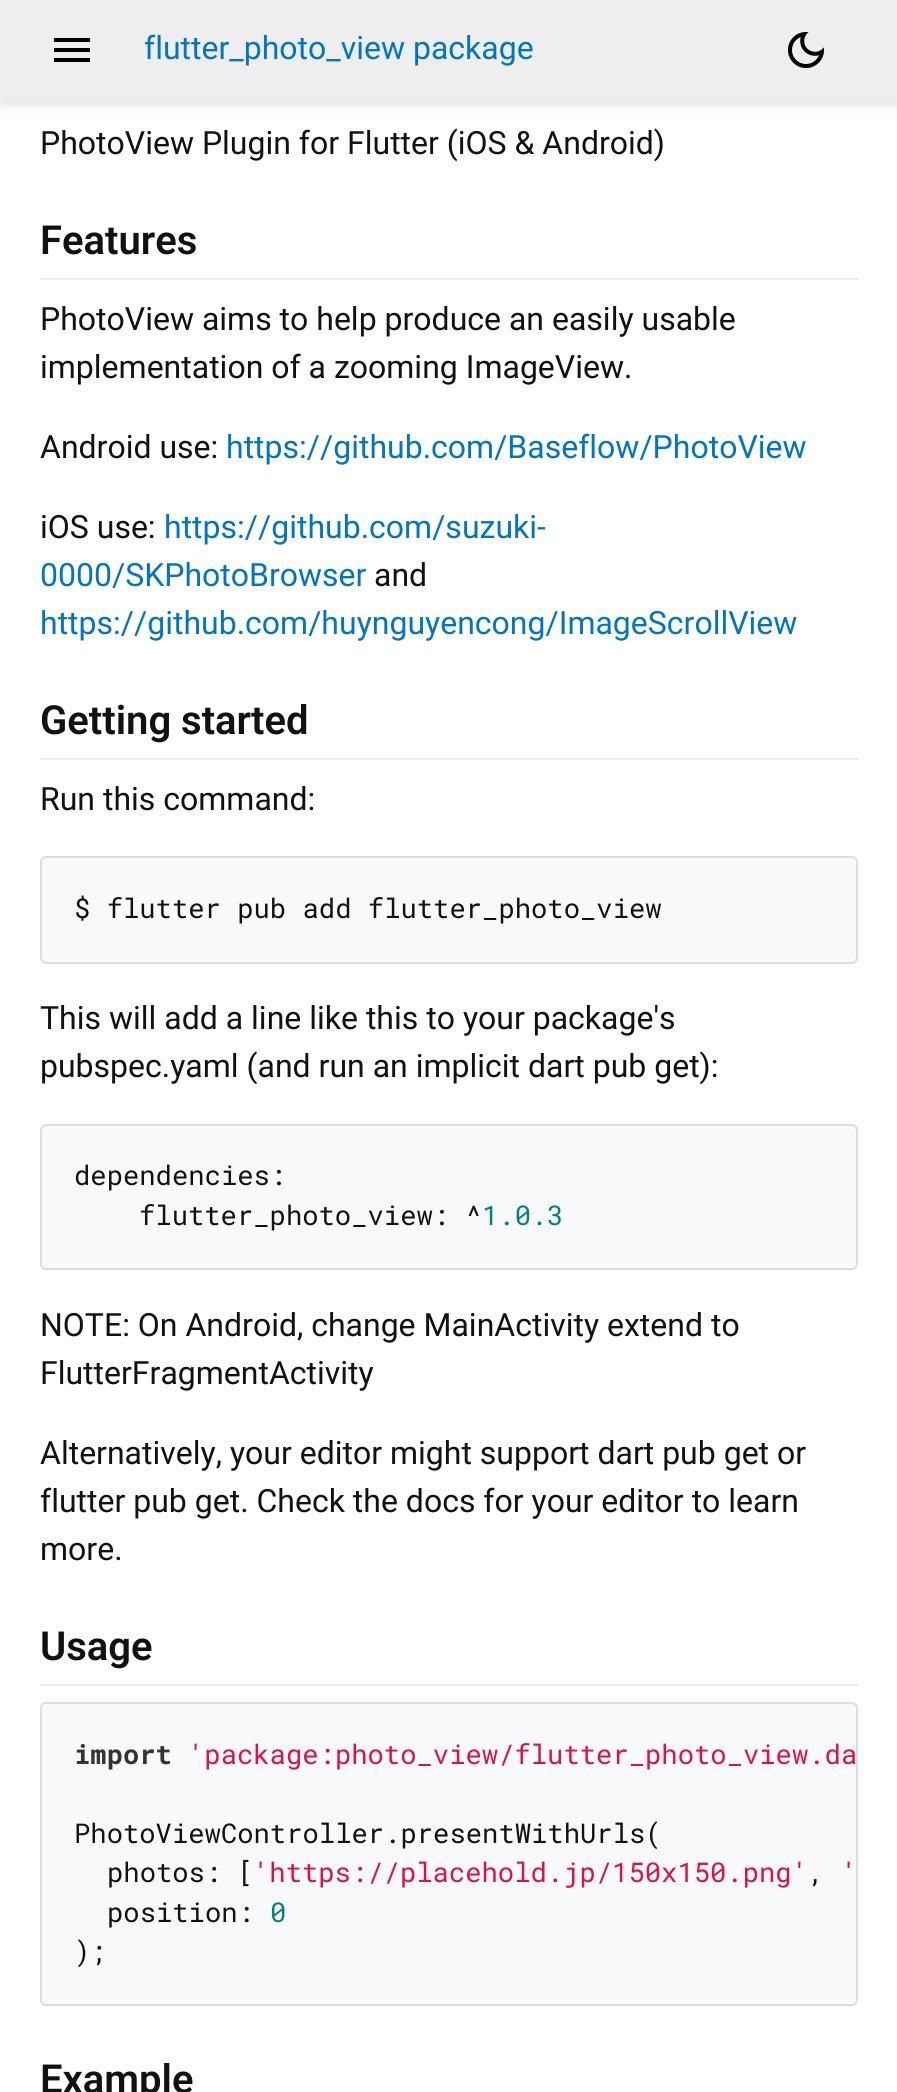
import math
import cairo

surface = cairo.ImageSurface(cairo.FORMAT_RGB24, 897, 2092)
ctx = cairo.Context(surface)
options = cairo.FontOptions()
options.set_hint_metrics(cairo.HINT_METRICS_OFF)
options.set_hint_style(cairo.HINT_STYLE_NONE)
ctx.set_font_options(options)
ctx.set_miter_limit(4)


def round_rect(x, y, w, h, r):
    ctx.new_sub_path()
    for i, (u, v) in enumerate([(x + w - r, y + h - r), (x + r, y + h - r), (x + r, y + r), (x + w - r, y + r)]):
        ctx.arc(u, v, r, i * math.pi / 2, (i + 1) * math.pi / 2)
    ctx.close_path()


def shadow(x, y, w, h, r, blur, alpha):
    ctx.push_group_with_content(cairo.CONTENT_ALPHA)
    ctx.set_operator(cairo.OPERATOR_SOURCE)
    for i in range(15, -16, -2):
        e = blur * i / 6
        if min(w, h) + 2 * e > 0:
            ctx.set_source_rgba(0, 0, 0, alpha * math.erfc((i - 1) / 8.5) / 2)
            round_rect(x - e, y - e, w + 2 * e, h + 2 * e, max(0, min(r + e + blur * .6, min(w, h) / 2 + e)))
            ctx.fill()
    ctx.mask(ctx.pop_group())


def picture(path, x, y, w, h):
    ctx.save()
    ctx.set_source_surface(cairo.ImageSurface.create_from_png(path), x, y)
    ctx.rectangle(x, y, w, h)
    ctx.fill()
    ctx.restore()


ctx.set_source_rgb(1, 1, 1)
ctx.paint()
ctx.set_source_rgb(0, 0, 0)
shadow(0, 6, 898, 100, 0, 5, 0.1)
ctx.set_source_rgb(0.933, 0.933, 0.933)
ctx.rectangle(0, 0, 897, 100)
ctx.fill()
ctx.set_source_rgb(0, 0, 0)
ctx.new_path()
ctx.move_to(54, 62)
ctx.line_to(54, 58)
ctx.line_to(90, 58)
ctx.line_to(90, 62)
ctx.close_path()
ctx.move_to(54, 52)
ctx.line_to(54, 48)
ctx.line_to(90, 48)
ctx.line_to(90, 52)
ctx.close_path()
ctx.move_to(54, 42)
ctx.line_to(54, 38)
ctx.line_to(90, 38)
ctx.line_to(90, 42)
ctx.close_path()
ctx.fill()
ctx.select_font_face("Roboto")
ctx.set_font_size(32)
ctx.set_source_rgb(0.004, 0.459, 0.761)
ctx.move_to(144, 59)
ctx.show_text("flutter_photo_view package")
picture("img1.png", 788, 32, 36, 36)
ctx.set_source_rgb(0.067, 0.067, 0.067)
ctx.move_to(40, 154)
ctx.show_text("PhotoView Plugin for Flutter (iOS & Android)")
ctx.set_source_rgb(0.918, 0.925, 0.937)
ctx.rectangle(40, 278, 818, 2)
ctx.fill()
ctx.select_font_face("Roboto SemiBold")
ctx.set_font_size(40)
ctx.set_source_rgb(0.067, 0.067, 0.067)
ctx.move_to(40, 254)
ctx.show_text("Features")
ctx.select_font_face("Roboto")
ctx.set_font_size(32)
ctx.move_to(40, 330)
ctx.show_text("PhotoView aims to help produce an easily usable")
ctx.move_to(40, 378)
ctx.show_text("implementation of a zooming ImageView.")
ctx.move_to(40, 458)
ctx.show_text("Android use:")
ctx.set_source_rgb(0.004, 0.459, 0.761)
ctx.move_to(226, 458)
ctx.show_text("https://github.com/Baseflow/PhotoView")
ctx.set_source_rgb(0.067, 0.067, 0.067)
ctx.move_to(40, 538)
ctx.show_text("iOS use:")
ctx.set_source_rgb(0.004, 0.459, 0.761)
ctx.move_to(164, 538)
ctx.show_text("https://github.com/suzuki-")
ctx.move_to(40, 586)
ctx.show_text("0000/SKPhotoBrowser")
ctx.set_source_rgb(0.067, 0.067, 0.067)
ctx.move_to(374, 586)
ctx.show_text("and")
ctx.set_source_rgb(0.004, 0.459, 0.761)
ctx.move_to(40, 634)
ctx.show_text("https://github.com/huynguyencong/ImageScrollView")
ctx.set_source_rgb(0.918, 0.925, 0.937)
ctx.rectangle(40, 758, 818, 2)
ctx.fill()
ctx.select_font_face("Roboto SemiBold")
ctx.set_font_size(40)
ctx.set_source_rgb(0.067, 0.067, 0.067)
ctx.move_to(40, 734)
ctx.show_text("Getting started")
ctx.select_font_face("Roboto")
ctx.set_font_size(32)
ctx.move_to(40, 810)
ctx.show_text("Run this command:")
ctx.set_source_rgb(0.965, 0.973, 0.98)
round_rect(41, 857, 816, 106, 5)
ctx.fill_preserve()
ctx.set_source_rgb(0.867, 0.867, 0.867)
ctx.stroke()
ctx.select_font_face("Roboto Mono")
ctx.set_font_size(27.2)
ctx.set_source_rgb(0.067, 0.067, 0.067)
ctx.move_to(74, 918)
ctx.show_text("$ flutter pub add flutter_photo_view")
ctx.select_font_face("Roboto")
ctx.set_font_size(32)
ctx.move_to(40, 1029)
ctx.show_text("This will add a line like this to your package's")
ctx.move_to(40, 1077)
ctx.show_text("pubspec.yaml (and run an implicit dart pub get):")
ctx.set_source_rgb(0.965, 0.973, 0.98)
round_rect(41, 1125, 816, 144, 5)
ctx.fill_preserve()
ctx.set_source_rgb(0.867, 0.867, 0.867)
ctx.stroke()
ctx.select_font_face("Roboto Mono")
ctx.set_font_size(27.2)
ctx.set_source_rgb(0.067, 0.067, 0.067)
ctx.move_to(74, 1185)
ctx.show_text("dependencies:")
ctx.move_to(139, 1225)
ctx.show_text("flutter_photo_view: ^")
ctx.set_source_rgb(0, 0.502, 0.502)
ctx.move_to(482, 1225)
ctx.show_text("1.0.3")
ctx.select_font_face("Roboto")
ctx.set_font_size(32)
ctx.set_source_rgb(0.067, 0.067, 0.067)
ctx.move_to(40, 1336)
ctx.show_text("NOTE: On Android, change MainActivity extend to")
ctx.move_to(40, 1384)
ctx.show_text("FlutterFragmentActivity")
ctx.move_to(40, 1464)
ctx.show_text("Alternatively, your editor might support dart pub get or")
ctx.move_to(40, 1512)
ctx.show_text("flutter pub get. Check the docs for your editor to learn")
ctx.move_to(40, 1560)
ctx.show_text("more.")
ctx.set_source_rgb(0.918, 0.925, 0.937)
ctx.rectangle(40, 1684, 818, 2)
ctx.fill()
ctx.select_font_face("Roboto SemiBold")
ctx.set_font_size(40)
ctx.set_source_rgb(0.067, 0.067, 0.067)
ctx.move_to(40, 1660)
ctx.show_text("Usage")
ctx.set_source_rgb(0.965, 0.973, 0.98)
round_rect(41, 1703, 816, 302, 5)
ctx.fill_preserve()
ctx.set_source_rgb(0.867, 0.867, 0.867)
ctx.stroke()
ctx.select_font_face("Roboto Mono", cairo.FONT_SLANT_NORMAL, cairo.FONT_WEIGHT_BOLD)
ctx.set_font_size(27.2)
ctx.set_source_rgb(0.2, 0.2, 0.2)
ctx.move_to(74, 1764)
ctx.show_text("import")
ctx.select_font_face("Roboto Mono")
ctx.set_source_rgb(0.867, 0.067, 0.267)
ctx.move_to(188, 1764)
ctx.show_text("'package:photo_view/flutter_photo_view.da")
ctx.set_source_rgb(0.067, 0.067, 0.067)
ctx.move_to(74, 1843)
ctx.show_text("PhotoViewController.presentWithUrls(")
ctx.move_to(107, 1882)
ctx.show_text("photos: [")
ctx.set_source_rgb(0.867, 0.067, 0.267)
ctx.move_to(253, 1882)
ctx.show_text("'https://placehold.jp/150x150.png'")
ctx.move_to(841, 1882)
ctx.show_text("'")
ctx.set_source_rgb(0.067, 0.067, 0.067)
ctx.move_to(808, 1882)
ctx.show_text(",")
ctx.move_to(107, 1922)
ctx.show_text("position:")
ctx.set_source_rgb(0, 0.502, 0.502)
ctx.move_to(270, 1922)
ctx.show_text("0")
ctx.set_source_rgb(0.067, 0.067, 0.067)
ctx.move_to(74, 1961)
ctx.show_text(");")
ctx.select_font_face("Roboto SemiBold")
ctx.set_font_size(40)
ctx.move_to(40, 2093)
ctx.show_text("Example")
surface.write_to_png("page.png")
